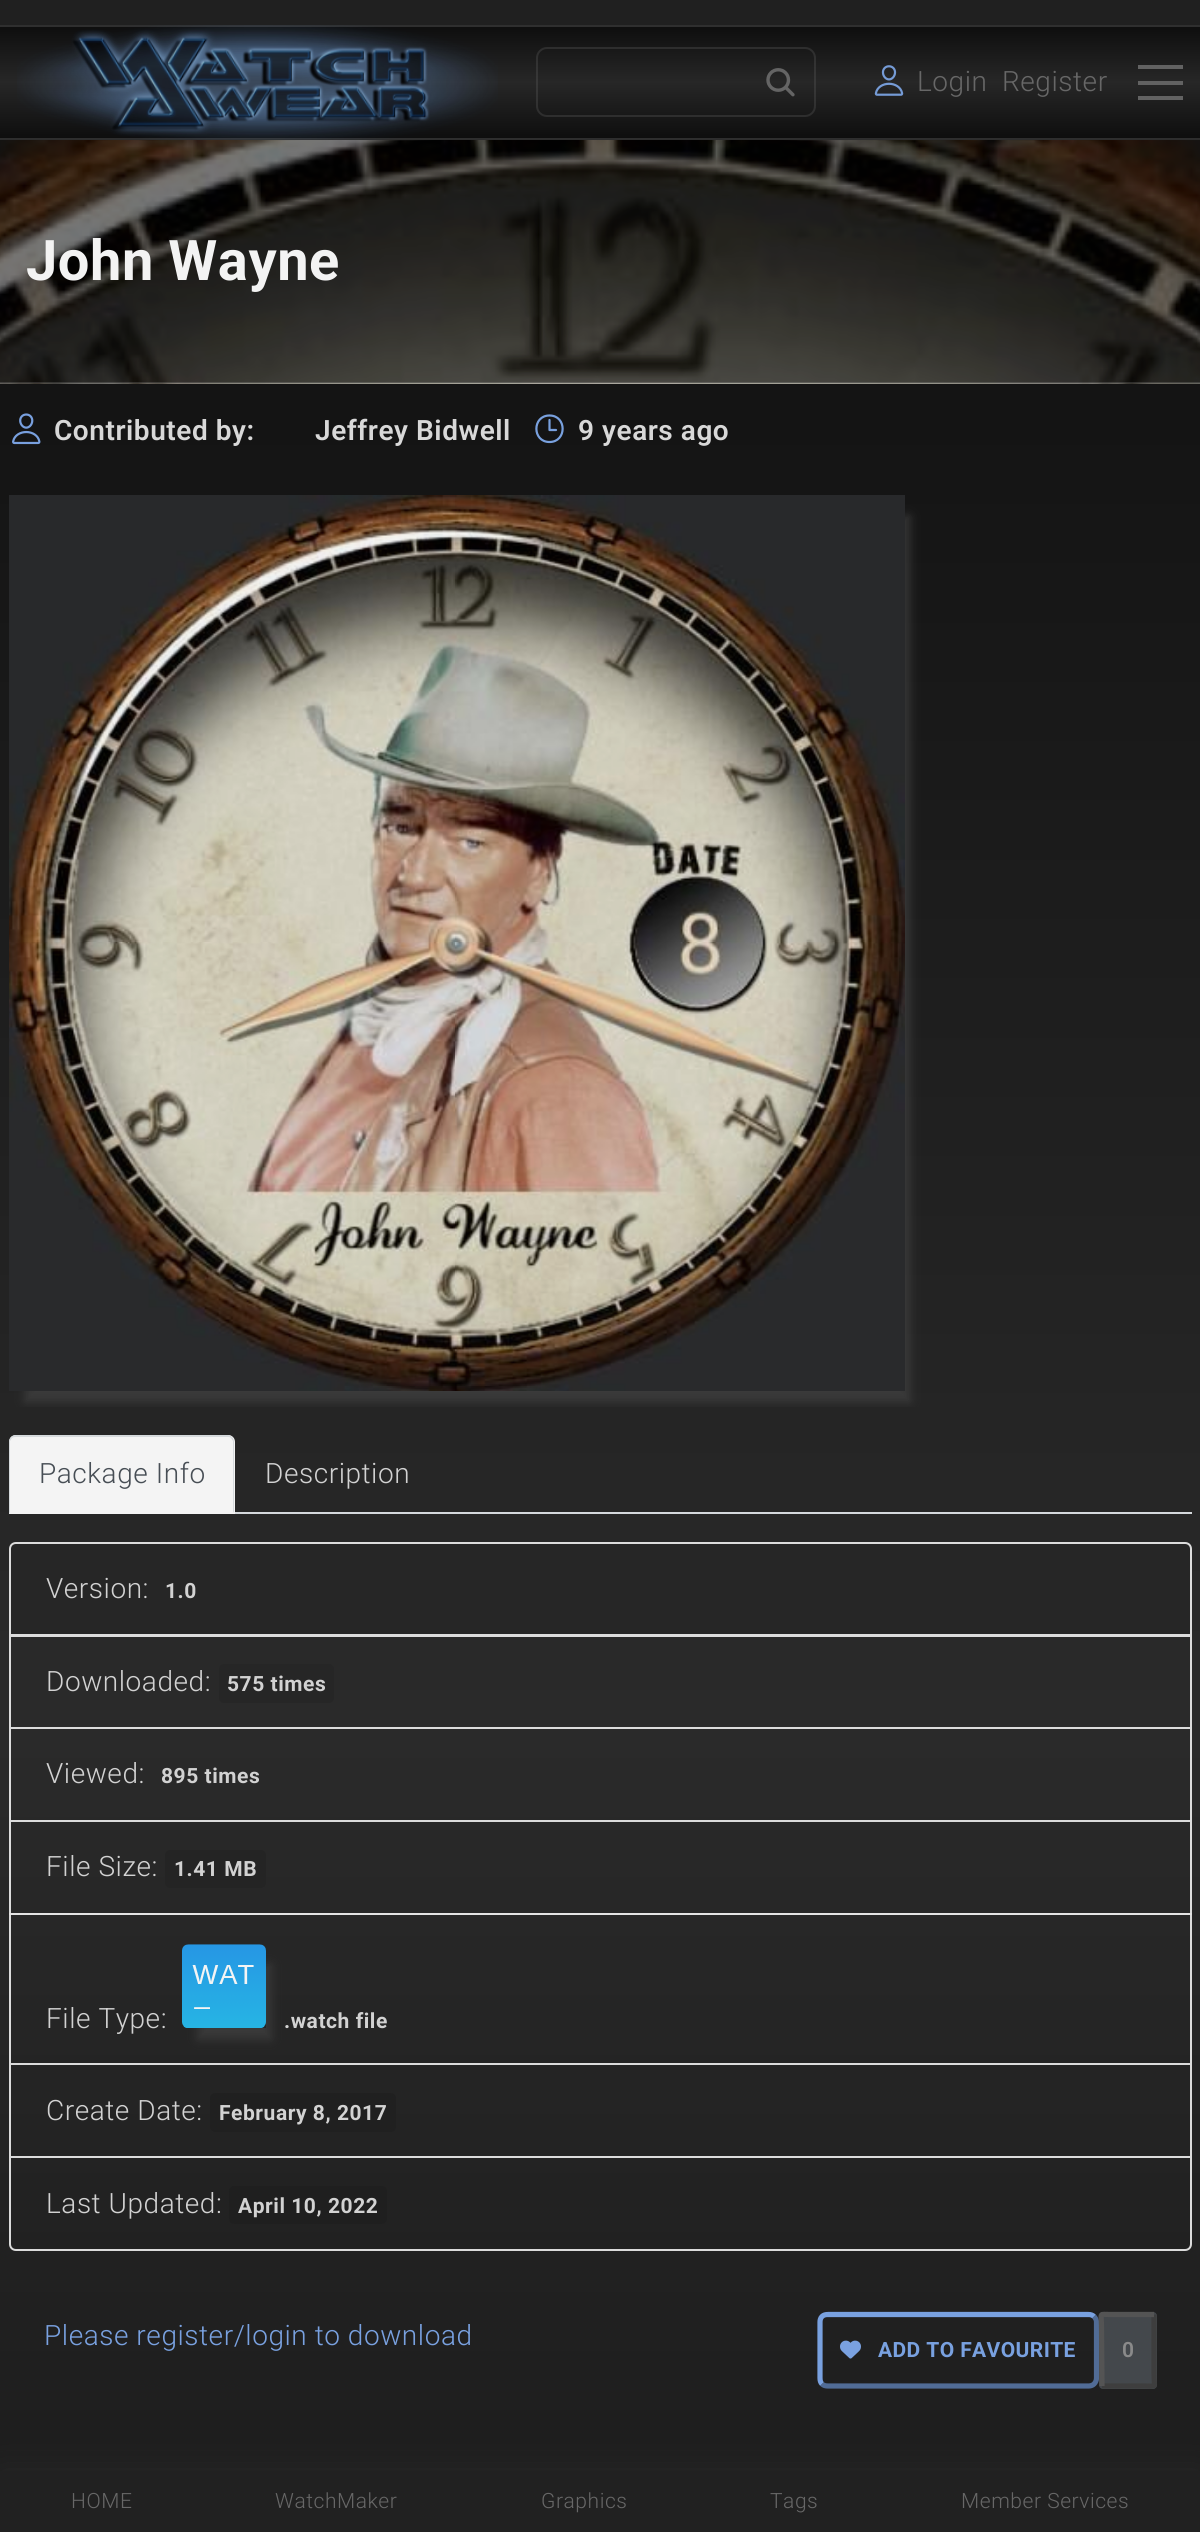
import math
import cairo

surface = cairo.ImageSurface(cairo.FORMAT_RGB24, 1200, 2532)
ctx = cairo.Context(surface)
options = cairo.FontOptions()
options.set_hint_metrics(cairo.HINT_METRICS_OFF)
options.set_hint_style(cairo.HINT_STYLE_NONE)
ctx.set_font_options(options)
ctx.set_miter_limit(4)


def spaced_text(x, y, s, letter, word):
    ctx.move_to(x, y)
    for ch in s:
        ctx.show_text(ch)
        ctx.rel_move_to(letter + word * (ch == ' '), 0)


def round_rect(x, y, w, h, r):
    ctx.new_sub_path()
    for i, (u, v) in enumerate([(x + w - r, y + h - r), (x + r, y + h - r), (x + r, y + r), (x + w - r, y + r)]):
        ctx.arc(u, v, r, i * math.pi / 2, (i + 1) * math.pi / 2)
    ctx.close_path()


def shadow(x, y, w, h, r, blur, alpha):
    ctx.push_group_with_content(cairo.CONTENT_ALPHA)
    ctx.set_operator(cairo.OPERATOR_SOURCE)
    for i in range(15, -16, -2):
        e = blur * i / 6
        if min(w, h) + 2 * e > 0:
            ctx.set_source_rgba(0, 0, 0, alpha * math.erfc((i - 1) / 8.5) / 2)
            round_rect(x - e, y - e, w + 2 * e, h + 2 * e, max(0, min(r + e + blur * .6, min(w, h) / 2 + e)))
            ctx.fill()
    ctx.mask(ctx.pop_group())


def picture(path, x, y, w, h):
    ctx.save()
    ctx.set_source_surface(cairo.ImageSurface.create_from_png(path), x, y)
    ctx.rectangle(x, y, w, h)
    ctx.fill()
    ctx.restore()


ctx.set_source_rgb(1, 1, 1)
ctx.paint()
gradient = cairo.LinearGradient(600, 0, 600, 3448)
gradient.add_color_stop_rgba(0, 0.051, 0.051, 0.051, 1)
gradient.add_color_stop_rgba(0.5, 0.165, 0.165, 0.165, 1)
gradient.add_color_stop_rgba(1, 0.051, 0.051, 0.051, 1)
ctx.set_source(gradient)
ctx.rectangle(0, 140, 1200, 2331)
ctx.fill()
ctx.set_source_rgb(0.125, 0.125, 0.125)
ctx.rectangle(0, 0, 1200, 25)
ctx.fill()
gradient = cairo.LinearGradient(600, 24, 600, 140)
gradient.add_color_stop_rgba(0, 0.051, 0.051, 0.051, 1)
gradient.add_color_stop_rgba(0.5, 0.153, 0.153, 0.153, 1)
gradient.add_color_stop_rgba(1, 0.051, 0.051, 0.051, 1)
ctx.set_source(gradient)
ctx.rectangle(0, 27, 1200, 113)
ctx.fill()
ctx.set_source_rgb(0.184, 0.184, 0.184)
ctx.rectangle(0, 25, 1200, 2)
ctx.fill()
picture("img1.png", 17, 25, 481, 115)
round_rect(537, 48, 278, 68, 10)
ctx.set_source_rgba(0.384, 0.384, 0.384, 0.3)
ctx.stroke()
picture("img2.png", 766, 68, 29, 29)
picture("img3.png", 874, 65, 30, 31)
ctx.select_font_face("Roboto Light")
ctx.set_font_size(28)
ctx.set_source_rgb(0.404, 0.404, 0.404)
spaced_text(917, 91, "Login", 0.55, 0)
spaced_text(1002, 91, "Register", 0.55, 0)
ctx.set_source_rgb(0.384, 0.384, 0.384)
ctx.rectangle(1138, 81, 45, 4)
ctx.fill()
ctx.rectangle(1138, 65, 45, 4)
ctx.fill()
ctx.rectangle(1138, 96, 45, 4)
ctx.fill()
ctx.set_source_rgba(0.91, 0.91, 0.91, 0.15)
ctx.rectangle(0, 138, 1200, 2)
ctx.fill()
picture("img4.png", 0, 140, 1200, 244)
ctx.select_font_face("Roboto", cairo.FONT_SLANT_NORMAL, cairo.FONT_WEIGHT_BOLD)
ctx.set_font_size(56)
ctx.set_source_rgb(0.953, 0.953, 0.953)
spaced_text(26, 280, "John Wayne", 0.55, 0)
ctx.set_source_rgba(0.953, 0.953, 0.953, 0.15)
ctx.rectangle(0, 382, 1200, 2)
ctx.fill()
picture("img5.png", 12, 413, 29, 32)
ctx.select_font_face("Roboto SemiBold")
ctx.set_font_size(28)
ctx.set_source_rgb(0.847, 0.847, 0.847)
spaced_text(54, 440, "Contributed by:", 0.55, 0)
spaced_text(315, 440, "Jeffrey Bidwell", 0.55, 0)
ctx.new_path()
ctx.move_to(549.5, 415.5)
ctx.curve_to(532, 415.5, 532, 442, 549.5, 442)
ctx.curve_to(567, 442, 567, 415.5, 549.5, 415.5)
ctx.close_path()
ctx.set_source_rgb(0.475, 0.631, 0.875)
ctx.set_line_width(2.2)
ctx.stroke()
ctx.new_path()
ctx.move_to(549.5, 420)
ctx.line_to(549.5, 430)
ctx.line_to(556, 430)
ctx.set_line_cap(cairo.LINE_CAP_ROUND)
ctx.set_line_join(cairo.LINE_JOIN_ROUND)
ctx.stroke()
ctx.set_source_rgb(0.847, 0.847, 0.847)
spaced_text(578, 440, "9 years ago", 0.55, 0)
ctx.save()
ctx.rectangle(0, 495, 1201, 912)
ctx.clip()
ctx.set_fill_rule(cairo.FILL_RULE_EVEN_ODD)
ctx.new_path()
ctx.move_to(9, 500)
ctx.line_to(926, 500)
ctx.line_to(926, 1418)
ctx.line_to(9, 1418)
ctx.close_path()
ctx.move_to(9, 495)
ctx.line_to(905, 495)
ctx.line_to(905, 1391)
ctx.line_to(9, 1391)
ctx.close_path()
ctx.clip()
ctx.set_source_rgb(0.271, 0.271, 0.271)
shadow(25, 516, 885, 886, 0, 5, 0.66)
ctx.restore()
picture("img6.png", 9, 495, 896, 896)
ctx.set_source_rgb(0.835, 0.851, 0.863)
ctx.rectangle(235, 1512, 957, 2)
ctx.fill()
ctx.set_source_rgb(0.957, 0.957, 0.957)
ctx.new_path()
ctx.move_to(16, 1435)
ctx.line_to(228, 1435)
ctx.curve_to(232, 1435, 235, 1438, 235, 1442)
ctx.line_to(235, 1514)
ctx.line_to(9, 1514)
ctx.line_to(9, 1442)
ctx.curve_to(9, 1438, 12, 1435, 16, 1435)
ctx.close_path()
ctx.fill()
ctx.set_source_rgb(0.835, 0.851, 0.863)
ctx.new_path()
ctx.move_to(16, 1435)
ctx.curve_to(14, 1435, 12, 1436, 11, 1437)
ctx.line_to(12, 1438)
ctx.curve_to(13, 1437, 15, 1437, 16, 1437)
ctx.line_to(228, 1437)
ctx.curve_to(229, 1437, 230, 1437, 231, 1438)
ctx.line_to(232, 1437)
ctx.curve_to(231, 1436, 230, 1435, 228, 1435)
ctx.close_path()
ctx.fill()
ctx.new_path()
ctx.move_to(232, 1437)
ctx.curve_to(233, 1438, 234, 1440, 234, 1442)
ctx.line_to(234, 1513)
ctx.line_to(233, 1512)
ctx.line_to(233, 1441)
ctx.line_to(231, 1438)
ctx.close_path()
ctx.fill()
ctx.set_source_rgb(0.957, 0.957, 0.957)
ctx.new_path()
ctx.move_to(9, 1514)
ctx.line_to(10, 1512)
ctx.line_to(233, 1512)
ctx.line_to(234, 1513)
ctx.line_to(234, 1514)
ctx.close_path()
ctx.fill()
ctx.set_source_rgb(0.835, 0.851, 0.863)
ctx.new_path()
ctx.move_to(11, 1437)
ctx.curve_to(10, 1438, 9, 1440, 9, 1442)
ctx.line_to(9, 1514)
ctx.line_to(10, 1512)
ctx.line_to(10, 1441)
ctx.line_to(12, 1438)
ctx.close_path()
ctx.fill()
ctx.select_font_face("Roboto Light")
ctx.set_source_rgb(0.278, 0.306, 0.333)
spaced_text(39, 1483, "Package Info", 0.55, 0)
ctx.set_source_rgb(0.824, 0.824, 0.824)
spaced_text(265, 1483, "Description", 0.55, 0)
ctx.set_source_rgb(0.149, 0.149, 0.149)
ctx.new_path()
ctx.move_to(16, 1543)
ctx.line_to(1185, 1543)
ctx.curve_to(1188.5, 1543, 1191, 1545.5, 1191, 1549)
ctx.line_to(1191, 1635)
ctx.line_to(10, 1635)
ctx.line_to(10, 1549)
ctx.curve_to(10, 1545.5, 12.5, 1543, 16, 1543)
ctx.close_path()
ctx.fill_preserve()
ctx.set_source_rgb(0.863, 0.863, 0.863)
ctx.set_line_width(2)
ctx.set_line_cap(cairo.LINE_CAP_BUTT)
ctx.set_line_join(cairo.LINE_JOIN_MITER)
ctx.stroke()
ctx.set_source_rgb(0.824, 0.824, 0.824)
spaced_text(46, 1598, "Version:", 0.55, 0)
ctx.select_font_face("Roboto", cairo.FONT_SLANT_NORMAL, cairo.FONT_WEIGHT_BOLD)
ctx.set_font_size(21)
spaced_text(165, 1598, "1.0", 0.55, 0)
ctx.rectangle(10, 1636, 1181, 92)
ctx.set_source_rgb(0.863, 0.863, 0.863)
ctx.stroke()
ctx.select_font_face("Roboto Light")
ctx.set_font_size(28)
ctx.set_source_rgb(0.824, 0.824, 0.824)
spaced_text(46, 1691, "Downloaded:", 0.55, 0)
ctx.set_source_rgb(0.149, 0.149, 0.149)
round_rect(219, 1664, 115, 39, 5)
ctx.fill()
ctx.select_font_face("Roboto", cairo.FONT_SLANT_NORMAL, cairo.FONT_WEIGHT_BOLD)
ctx.set_font_size(21)
ctx.set_source_rgb(0.824, 0.824, 0.824)
spaced_text(227, 1691, "575 times", 0.55, 0)
ctx.rectangle(10, 1728, 1181, 93)
ctx.set_source_rgb(0.863, 0.863, 0.863)
ctx.stroke()
ctx.select_font_face("Roboto Light")
ctx.set_font_size(28)
ctx.set_source_rgb(0.824, 0.824, 0.824)
spaced_text(46, 1783, "Viewed:", 0.55, 0)
ctx.select_font_face("Roboto", cairo.FONT_SLANT_NORMAL, cairo.FONT_WEIGHT_BOLD)
ctx.set_font_size(21)
spaced_text(161, 1783, "895 times", 0.55, 0)
ctx.rectangle(10, 1821, 1181, 93)
ctx.set_source_rgb(0.863, 0.863, 0.863)
ctx.stroke()
ctx.select_font_face("Roboto Light")
ctx.set_font_size(28)
ctx.set_source_rgb(0.824, 0.824, 0.824)
spaced_text(46, 1876, "File Size:", 0.55, 0)
ctx.set_source_rgb(0.141, 0.141, 0.141)
round_rect(165, 1850, 101, 38, 5)
ctx.fill()
ctx.select_font_face("Roboto", cairo.FONT_SLANT_NORMAL, cairo.FONT_WEIGHT_BOLD)
ctx.set_font_size(21)
ctx.set_source_rgb(0.824, 0.824, 0.824)
spaced_text(174, 1876, "1.41 MB", 0.55, 0)
ctx.set_source_rgba(0, 0, 0, 0.03)
ctx.rectangle(9, 1913, 1183, 2)
ctx.fill()
ctx.rectangle(10, 1914, 1181, 150)
ctx.set_source_rgba(0.898, 0.898, 0.898, 0.95)
ctx.stroke()
ctx.select_font_face("Roboto Light")
ctx.set_font_size(28)
ctx.set_source_rgb(0.824, 0.824, 0.824)
spaced_text(46, 2028, "File Type:", 0.55, 0)
ctx.save()
ctx.set_fill_rule(cairo.FILL_RULE_EVEN_ODD)
ctx.new_path()
ctx.move_to(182, 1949)
ctx.line_to(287, 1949)
ctx.line_to(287, 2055)
ctx.line_to(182, 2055)
ctx.close_path()
ctx.move_to(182, 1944)
ctx.line_to(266, 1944)
ctx.line_to(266, 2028)
ctx.line_to(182, 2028)
ctx.close_path()
ctx.clip()
ctx.set_source_rgb(0.263, 0.263, 0.263)
shadow(198, 1965, 73, 74, 0, 5, 0.69)
ctx.restore()
picture("img7.png", 182, 1944, 84, 84)
ctx.select_font_face("Roboto", cairo.FONT_SLANT_NORMAL, cairo.FONT_WEIGHT_BOLD)
ctx.set_font_size(21)
spaced_text(284, 2028, ".watch file", 0.55, 0)
ctx.rectangle(10, 2064, 1181, 93)
ctx.set_source_rgb(0.859, 0.859, 0.859)
ctx.stroke()
ctx.select_font_face("Roboto Light")
ctx.set_font_size(28)
ctx.set_source_rgb(0.824, 0.824, 0.824)
spaced_text(46, 2120, "Create Date:", 0.55, 0)
ctx.set_source_rgb(0.125, 0.125, 0.125)
round_rect(210, 2093, 186, 39, 5)
ctx.fill()
ctx.select_font_face("Roboto", cairo.FONT_SLANT_NORMAL, cairo.FONT_WEIGHT_BOLD)
ctx.set_font_size(21)
ctx.set_source_rgb(0.824, 0.824, 0.824)
spaced_text(219, 2120, "February 8, 2017", 0.55, 0)
ctx.new_path()
ctx.move_to(10, 2157)
ctx.line_to(1191, 2157)
ctx.line_to(1191, 2244)
ctx.curve_to(1191, 2247.5, 1188.5, 2250, 1185, 2250)
ctx.line_to(16, 2250)
ctx.curve_to(12.5, 2250, 10, 2247.5, 10, 2244)
ctx.close_path()
ctx.set_source_rgb(0.859, 0.859, 0.859)
ctx.stroke()
ctx.select_font_face("Roboto Light")
ctx.set_font_size(28)
ctx.set_source_rgb(0.824, 0.824, 0.824)
spaced_text(46, 2213, "Last Updated:", 0.55, 0)
ctx.set_source_rgb(0.122, 0.122, 0.122)
round_rect(229, 2186, 158, 38, 5)
ctx.fill()
ctx.select_font_face("Roboto", cairo.FONT_SLANT_NORMAL, cairo.FONT_WEIGHT_BOLD)
ctx.set_font_size(21)
ctx.set_source_rgb(0.824, 0.824, 0.824)
spaced_text(238, 2213, "April 10, 2022", 0.55, 0)
ctx.select_font_face("Roboto Light")
ctx.set_font_size(28)
ctx.set_source_rgb(0.475, 0.631, 0.878)
spaced_text(44, 2345, "Please register/login to download", 0.55, 0)
ctx.new_path()
ctx.move_to(1094, 2316.5)
ctx.curve_to(1095.5, 2318, 1096.5, 2320, 1096.5, 2322)
ctx.line_to(1096.5, 2378)
ctx.curve_to(1096.5, 2380.5, 1095.5, 2382.5, 1094, 2384)
ctx.curve_to(1092.5, 2385.5, 1090.5, 2386, 1088.5, 2386)
ctx.line_to(828, 2386)
ctx.curve_to(825.5, 2386, 823.5, 2385.5, 822, 2384)
ctx.set_source_rgb(0.318, 0.424, 0.588)
ctx.set_line_width(5.2)
ctx.stroke()
ctx.new_path()
ctx.move_to(822, 2384)
ctx.curve_to(820.5, 2382.5, 820, 2380.5, 820, 2378)
ctx.line_to(820, 2322)
ctx.curve_to(820, 2320, 820.5, 2318, 822, 2316.5)
ctx.curve_to(823.5, 2315, 825.5, 2314.5, 828, 2314.5)
ctx.line_to(1088.5, 2314.5)
ctx.curve_to(1090.5, 2314.5, 1092.5, 2315, 1094, 2316.5)
ctx.set_source_rgb(0.475, 0.631, 0.878)
ctx.stroke()
picture("img8.png", 840, 2340, 21, 19)
ctx.select_font_face("Roboto", cairo.FONT_SLANT_NORMAL, cairo.FONT_WEIGHT_BOLD)
ctx.set_font_size(21)
spaced_text(878, 2357, "ADD TO FAVOURITE", 0.4, 0)
ctx.set_source_rgb(0.267, 0.282, 0.298)
round_rect(1099, 2312, 58, 77, 4)
ctx.fill()
ctx.new_path()
ctx.move_to(1154, 2314.5)
ctx.line_to(1154, 2373.5)
ctx.curve_to(1154, 2388.5, 1157.5, 2386, 1145, 2386)
ctx.line_to(1102, 2386)
ctx.set_source_rgb(0.243, 0.243, 0.243)
ctx.stroke()
ctx.new_path()
ctx.move_to(1102, 2386)
ctx.line_to(1101.5, 2327)
ctx.curve_to(1101.5, 2312, 1098, 2314.5, 1111, 2314.5)
ctx.line_to(1154, 2314.5)
ctx.set_source_rgb(0.329, 0.329, 0.329)
ctx.stroke()
ctx.select_font_face("Roboto SemiBold")
ctx.set_source_rgb(0.541, 0.541, 0.541)
spaced_text(1122, 2357, "0", 0.4, 0)
ctx.set_source_rgb(0.376, 0.376, 0.376)
shadow(0, 2471, 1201, 61, 0, 17.5, 0.15)
ctx.set_source_rgb(0.129, 0.129, 0.129)
ctx.rectangle(0, 2471, 1200, 61)
ctx.fill()
ctx.select_font_face("Roboto Light")
ctx.set_source_rgb(0.404, 0.404, 0.404)
spaced_text(71, 2508, "HOME", 0.55, 0)
spaced_text(275, 2508, "WatchMaker", 0.55, 0)
spaced_text(541, 2508, "Graphics", 0.55, 0)
spaced_text(770, 2508, "Tags", 0.55, 0)
spaced_text(961, 2508, "Member Services", 0.55, 0)
surface.write_to_png("page.png")
